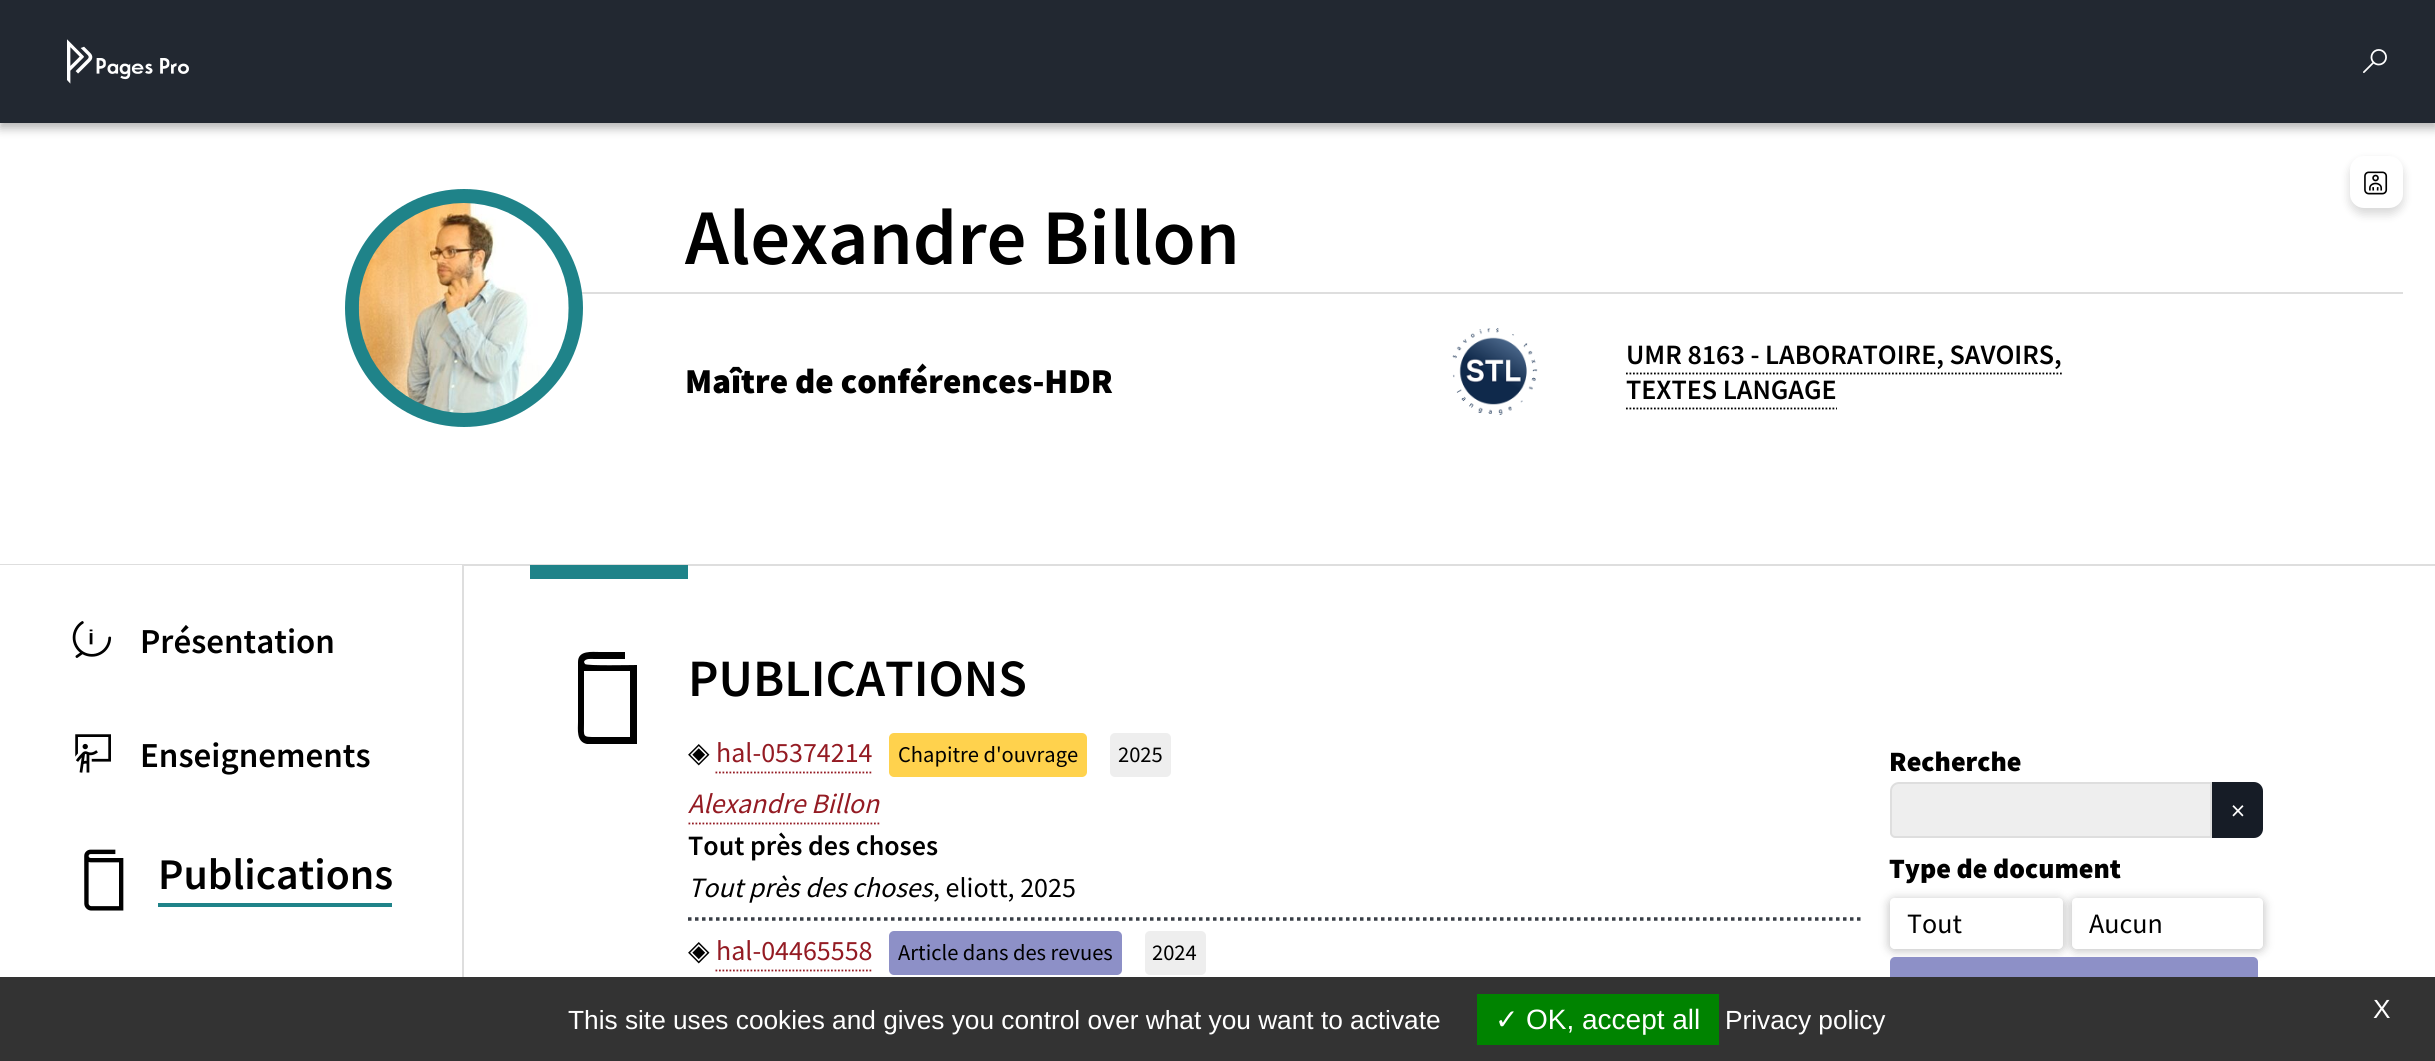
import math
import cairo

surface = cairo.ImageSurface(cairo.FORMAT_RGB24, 2435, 1061)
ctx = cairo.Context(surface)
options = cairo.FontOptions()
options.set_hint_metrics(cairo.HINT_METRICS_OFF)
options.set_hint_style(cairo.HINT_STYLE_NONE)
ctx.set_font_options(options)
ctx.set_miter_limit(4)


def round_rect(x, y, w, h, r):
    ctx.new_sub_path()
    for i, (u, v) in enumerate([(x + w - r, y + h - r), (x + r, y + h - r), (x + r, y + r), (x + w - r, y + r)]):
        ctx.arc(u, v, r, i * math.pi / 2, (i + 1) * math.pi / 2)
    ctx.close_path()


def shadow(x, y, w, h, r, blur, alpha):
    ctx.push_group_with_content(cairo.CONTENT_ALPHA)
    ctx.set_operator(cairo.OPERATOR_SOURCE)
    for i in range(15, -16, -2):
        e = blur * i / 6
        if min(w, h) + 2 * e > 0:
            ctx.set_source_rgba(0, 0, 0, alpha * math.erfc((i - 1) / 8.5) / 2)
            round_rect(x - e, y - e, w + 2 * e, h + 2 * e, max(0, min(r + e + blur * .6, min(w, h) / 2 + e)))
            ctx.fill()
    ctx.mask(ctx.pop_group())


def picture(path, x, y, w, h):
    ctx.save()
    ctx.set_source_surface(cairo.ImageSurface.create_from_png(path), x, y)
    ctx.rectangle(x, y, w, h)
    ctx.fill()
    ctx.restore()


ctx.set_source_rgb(1, 1, 1)
ctx.paint()
ctx.set_source_rgb(0, 0, 0)
shadow(0, 5, 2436, 123, 0, 5, 0.3)
ctx.set_source_rgb(0.133, 0.157, 0.192)
ctx.rectangle(0, 0, 2435, 123)
ctx.fill()
picture("img1.png", 67, 39, 122, 45)
picture("img2.png", 2363, 49, 24, 24)
ctx.set_source_rgb(0, 0, 0)
shadow(2350, 161, 53, 53, 14, 5, 0.16)
ctx.set_source_rgb(1, 1, 1)
round_rect(2350, 156, 53, 52, 14)
ctx.fill()
picture("img3.png", 2364, 171, 24, 24)
ctx.set_source_rgb(0.871, 0.871, 0.871)
ctx.rectangle(462, 565, 2, 412)
ctx.fill()
ctx.rectangle(0, 564, 2435, 2)
ctx.fill()
ctx.rectangle(581, 292, 1822, 2)
ctx.fill()
ctx.set_source_rgb(0.122, 0.514, 0.537)
ctx.arc(464, 308, 119, 0, 2 * math.pi)
ctx.fill()
picture("img4.png", 358, 203, 211, 210)
ctx.select_font_face("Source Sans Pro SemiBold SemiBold")
ctx.set_font_size(78.75)
ctx.set_source_rgb(0, 0, 0)
ctx.move_to(685, 264)
ctx.show_text("Alexandre Billon")
ctx.select_font_face("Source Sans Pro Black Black")
ctx.set_font_size(35)
ctx.move_to(685, 393)
ctx.show_text("Maître de conférences-HDR")
picture("img5.png", 1452, 328, 86, 87)
ctx.select_font_face("Source Sans Pro SemiBold SemiBold")
ctx.set_font_size(28)
ctx.move_to(1626, 364)
ctx.show_text("UMR 8163 - LABORATOIRE, SAVOIRS,")
ctx.new_path()
ctx.move_to(1626, 373.5)
ctx.line_to(2062, 373.5)
ctx.set_line_width(1.8)
ctx.set_dash([1.75, 1.75])
ctx.stroke()
ctx.move_to(1626, 399)
ctx.show_text("TEXTES LANGAGE")
ctx.new_path()
ctx.move_to(1626, 408.5)
ctx.line_to(1837, 408.5)
ctx.stroke()
ctx.set_source_rgb(1, 1, 1)
ctx.rectangle(0, 565, 462, 1)
ctx.fill()
picture("img6.png", 72, 621, 40, 37)
ctx.set_font_size(35)
ctx.set_source_rgb(0, 0, 0)
ctx.move_to(140, 653)
ctx.show_text("Présentation")
picture("img7.png", 75, 734, 36, 39)
ctx.move_to(140, 767)
ctx.show_text("Enseignements")
picture("img8.png", 84, 849, 40, 62)
ctx.set_font_size(43.75)
ctx.move_to(158, 889)
ctx.show_text("Publications")
ctx.set_source_rgb(0.122, 0.514, 0.537)
ctx.rectangle(158, 903, 234, 4)
ctx.fill()
ctx.rectangle(530, 565, 158, 14)
ctx.fill()
ctx.set_source_rgb(0, 0, 0)
ctx.new_path()
ctx.move_to(578, 662)
ctx.curve_to(578, 650, 592, 652, 600, 652)
ctx.line_to(625, 652)
ctx.line_to(625, 659)
ctx.line_to(594, 659)
ctx.curve_to(592, 659, 585, 658, 584, 662)
ctx.line_to(585, 664)
ctx.curve_to(587, 666, 631, 665, 637, 665)
ctx.line_to(637, 744)
ctx.line_to(587, 744)
ctx.curve_to(576, 742, 578, 729, 578, 722)
ctx.close_path()
ctx.move_to(630, 671)
ctx.line_to(587, 671)
ctx.line_to(584, 671)
ctx.line_to(584, 723)
ctx.curve_to(584, 737, 582, 737, 596, 737)
ctx.line_to(630, 737)
ctx.close_path()
ctx.fill()
ctx.set_font_size(52.5)
ctx.move_to(688, 696)
ctx.show_text("PUBLICATIONS")
ctx.new_path()
ctx.move_to(688, 919)
ctx.line_to(1864, 919)
ctx.set_source_rgb(0.224, 0.243, 0.275)
ctx.set_line_width(3.5)
ctx.set_dash([3.5, 3.5])
ctx.stroke()
ctx.select_font_face("DejaVu Sans")
ctx.set_font_size(28)
ctx.set_source_rgb(0, 0, 0)
ctx.move_to(688, 762)
ctx.show_text("◈")
ctx.select_font_face("Source Sans Pro")
ctx.set_source_rgb(0.58, 0.106, 0.137)
ctx.move_to(716, 762)
ctx.show_text("hal-05374214")
ctx.new_path()
ctx.move_to(715.5, 772.5)
ctx.line_to(872, 772.5)
ctx.set_line_width(1.8)
ctx.set_dash([1.75, 1.75])
ctx.stroke()
ctx.set_source_rgb(1, 0.824, 0.302)
round_rect(889, 733, 198, 44, 5)
ctx.fill()
ctx.set_font_size(22.5)
ctx.set_source_rgb(0, 0, 0)
ctx.move_to(898, 762)
ctx.show_text("Chapitre d'ouvrage")
ctx.set_source_rgb(0.933, 0.933, 0.933)
round_rect(1110, 733, 61, 44, 5)
ctx.fill()
ctx.set_source_rgb(0, 0, 0)
ctx.move_to(1118, 762)
ctx.show_text("2025")
ctx.select_font_face("Source Sans Pro", cairo.FONT_SLANT_ITALIC)
ctx.set_font_size(28)
ctx.set_source_rgb(0.58, 0.106, 0.137)
ctx.move_to(688, 813)
ctx.show_text("Alexandre Billon")
ctx.new_path()
ctx.move_to(688.5, 823.5)
ctx.line_to(879.5, 823.5)
ctx.stroke()
ctx.select_font_face("Source Sans Pro SemiBold SemiBold")
ctx.set_source_rgb(0, 0, 0)
ctx.move_to(688, 855)
ctx.show_text("Tout près des choses")
ctx.select_font_face("Source Sans Pro", cairo.FONT_SLANT_ITALIC)
ctx.move_to(688, 897)
ctx.show_text("Tout près des choses")
ctx.select_font_face("Source Sans Pro")
ctx.move_to(933, 897)
ctx.show_text(", eliott, 2025")
ctx.select_font_face("DejaVu Sans")
ctx.move_to(688, 960)
ctx.show_text("◈")
ctx.select_font_face("Source Sans Pro")
ctx.set_source_rgb(0.58, 0.106, 0.137)
ctx.move_to(716, 960)
ctx.show_text("hal-04465558")
ctx.new_path()
ctx.move_to(715.5, 970.5)
ctx.line_to(872, 970.5)
ctx.stroke()
ctx.set_source_rgb(0.553, 0.565, 0.78)
round_rect(889, 931, 233, 44, 5)
ctx.fill()
ctx.set_font_size(22.5)
ctx.set_source_rgb(0, 0, 0)
ctx.move_to(898, 960)
ctx.show_text("Article dans des revues")
ctx.set_source_rgb(0.933, 0.933, 0.933)
round_rect(1145, 931, 61, 44, 5)
ctx.fill()
ctx.set_source_rgb(0, 0, 0)
ctx.move_to(1152, 960)
ctx.show_text("2024")
ctx.select_font_face("Source Sans Pro Black Black")
ctx.set_font_size(28)
ctx.move_to(1889, 771)
ctx.show_text("Recherche")
ctx.set_source_rgb(0.933, 0.933, 0.933)
ctx.new_path()
ctx.move_to(1899, 783)
ctx.line_to(2211, 783)
ctx.line_to(2211, 837)
ctx.line_to(1895, 837)
ctx.curve_to(1893, 837, 1891, 835, 1891, 833)
ctx.line_to(1891, 791)
ctx.curve_to(1891, 786.5, 1894.5, 783, 1899, 783)
ctx.close_path()
ctx.fill_preserve()
ctx.set_source_rgb(0.871, 0.871, 0.871)
ctx.set_line_width(2)
ctx.set_dash([])
ctx.stroke()
ctx.set_source_rgb(0.086, 0.11, 0.149)
ctx.new_path()
ctx.move_to(2214.5, 784.5)
ctx.line_to(2254, 784.5)
ctx.curve_to(2257.5, 784.5, 2260.5, 787.5, 2260.5, 791)
ctx.line_to(2260.5, 829)
ctx.curve_to(2260.5, 832.5, 2257.5, 835.5, 2254, 835.5)
ctx.line_to(2214.5, 835.5)
ctx.close_path()
ctx.fill_preserve()
ctx.set_line_width(5)
ctx.stroke()
ctx.select_font_face("Source Sans Pro")
ctx.set_source_rgb(1, 1, 1)
ctx.move_to(2231, 820)
ctx.show_text("×")
ctx.select_font_face("Source Sans Pro Black Black")
ctx.set_source_rgb(0, 0, 0)
ctx.move_to(1889, 878)
ctx.show_text("Type de document")
ctx.save()
ctx.set_fill_rule(cairo.FILL_RULE_EVEN_ODD)
ctx.new_path()
ctx.move_to(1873, 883)
ctx.line_to(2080, 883)
ctx.line_to(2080, 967)
ctx.line_to(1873, 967)
ctx.close_path()
ctx.move_to(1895, 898)
ctx.line_to(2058, 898)
ctx.curve_to(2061, 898, 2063, 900, 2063, 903)
ctx.line_to(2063, 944)
ctx.curve_to(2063, 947, 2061, 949, 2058, 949)
ctx.line_to(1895, 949)
ctx.curve_to(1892, 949, 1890, 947, 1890, 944)
ctx.line_to(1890, 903)
ctx.curve_to(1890, 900, 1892, 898, 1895, 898)
ctx.close_path()
ctx.clip()
ctx.set_source_rgb(0, 0, 0)
shadow(1888, 898, 177, 54, 7, 4.5, 0.2)
ctx.restore()
ctx.select_font_face("Source Sans Pro")
ctx.move_to(1907, 933)
ctx.show_text("Tout")
ctx.save()
ctx.set_fill_rule(cairo.FILL_RULE_EVEN_ODD)
ctx.new_path()
ctx.move_to(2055, 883)
ctx.line_to(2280, 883)
ctx.line_to(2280, 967)
ctx.line_to(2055, 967)
ctx.close_path()
ctx.move_to(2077, 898)
ctx.line_to(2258, 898)
ctx.curve_to(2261, 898, 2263, 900, 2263, 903)
ctx.line_to(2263, 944)
ctx.curve_to(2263, 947, 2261, 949, 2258, 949)
ctx.line_to(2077, 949)
ctx.curve_to(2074, 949, 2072, 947, 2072, 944)
ctx.line_to(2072, 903)
ctx.curve_to(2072, 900, 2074, 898, 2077, 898)
ctx.close_path()
ctx.clip()
ctx.set_source_rgb(0, 0, 0)
shadow(2070, 898, 195, 54, 7, 4.5, 0.2)
ctx.restore()
ctx.move_to(2089, 933)
ctx.show_text("Aucun")
ctx.set_source_rgb(0.553, 0.565, 0.78)
round_rect(1890, 957, 368, 44, 5)
ctx.fill()
ctx.set_source_rgb(0.2, 0.2, 0.2)
ctx.rectangle(0, 977, 2435, 84)
ctx.fill()
ctx.select_font_face("Liberation Sans")
ctx.set_font_size(26.25)
ctx.set_source_rgb(1, 1, 1)
ctx.move_to(568, 1029)
ctx.show_text("This site uses cookies and gives you control over what you want to activate")
ctx.set_source_rgb(0, 0.514, 0)
ctx.rectangle(1477, 994, 242, 51)
ctx.fill()
ctx.select_font_face("DejaVu Sans")
ctx.set_font_size(28)
ctx.set_source_rgb(1, 1, 1)
ctx.move_to(1495, 1029)
ctx.show_text("✓")
ctx.select_font_face("Liberation Sans")
ctx.move_to(1526, 1029)
ctx.show_text("OK, accept all")
ctx.set_font_size(26.25)
ctx.move_to(1725, 1029)
ctx.show_text("Privacy policy")
ctx.move_to(2373, 1018)
ctx.show_text("X")
surface.write_to_png("page.png")
